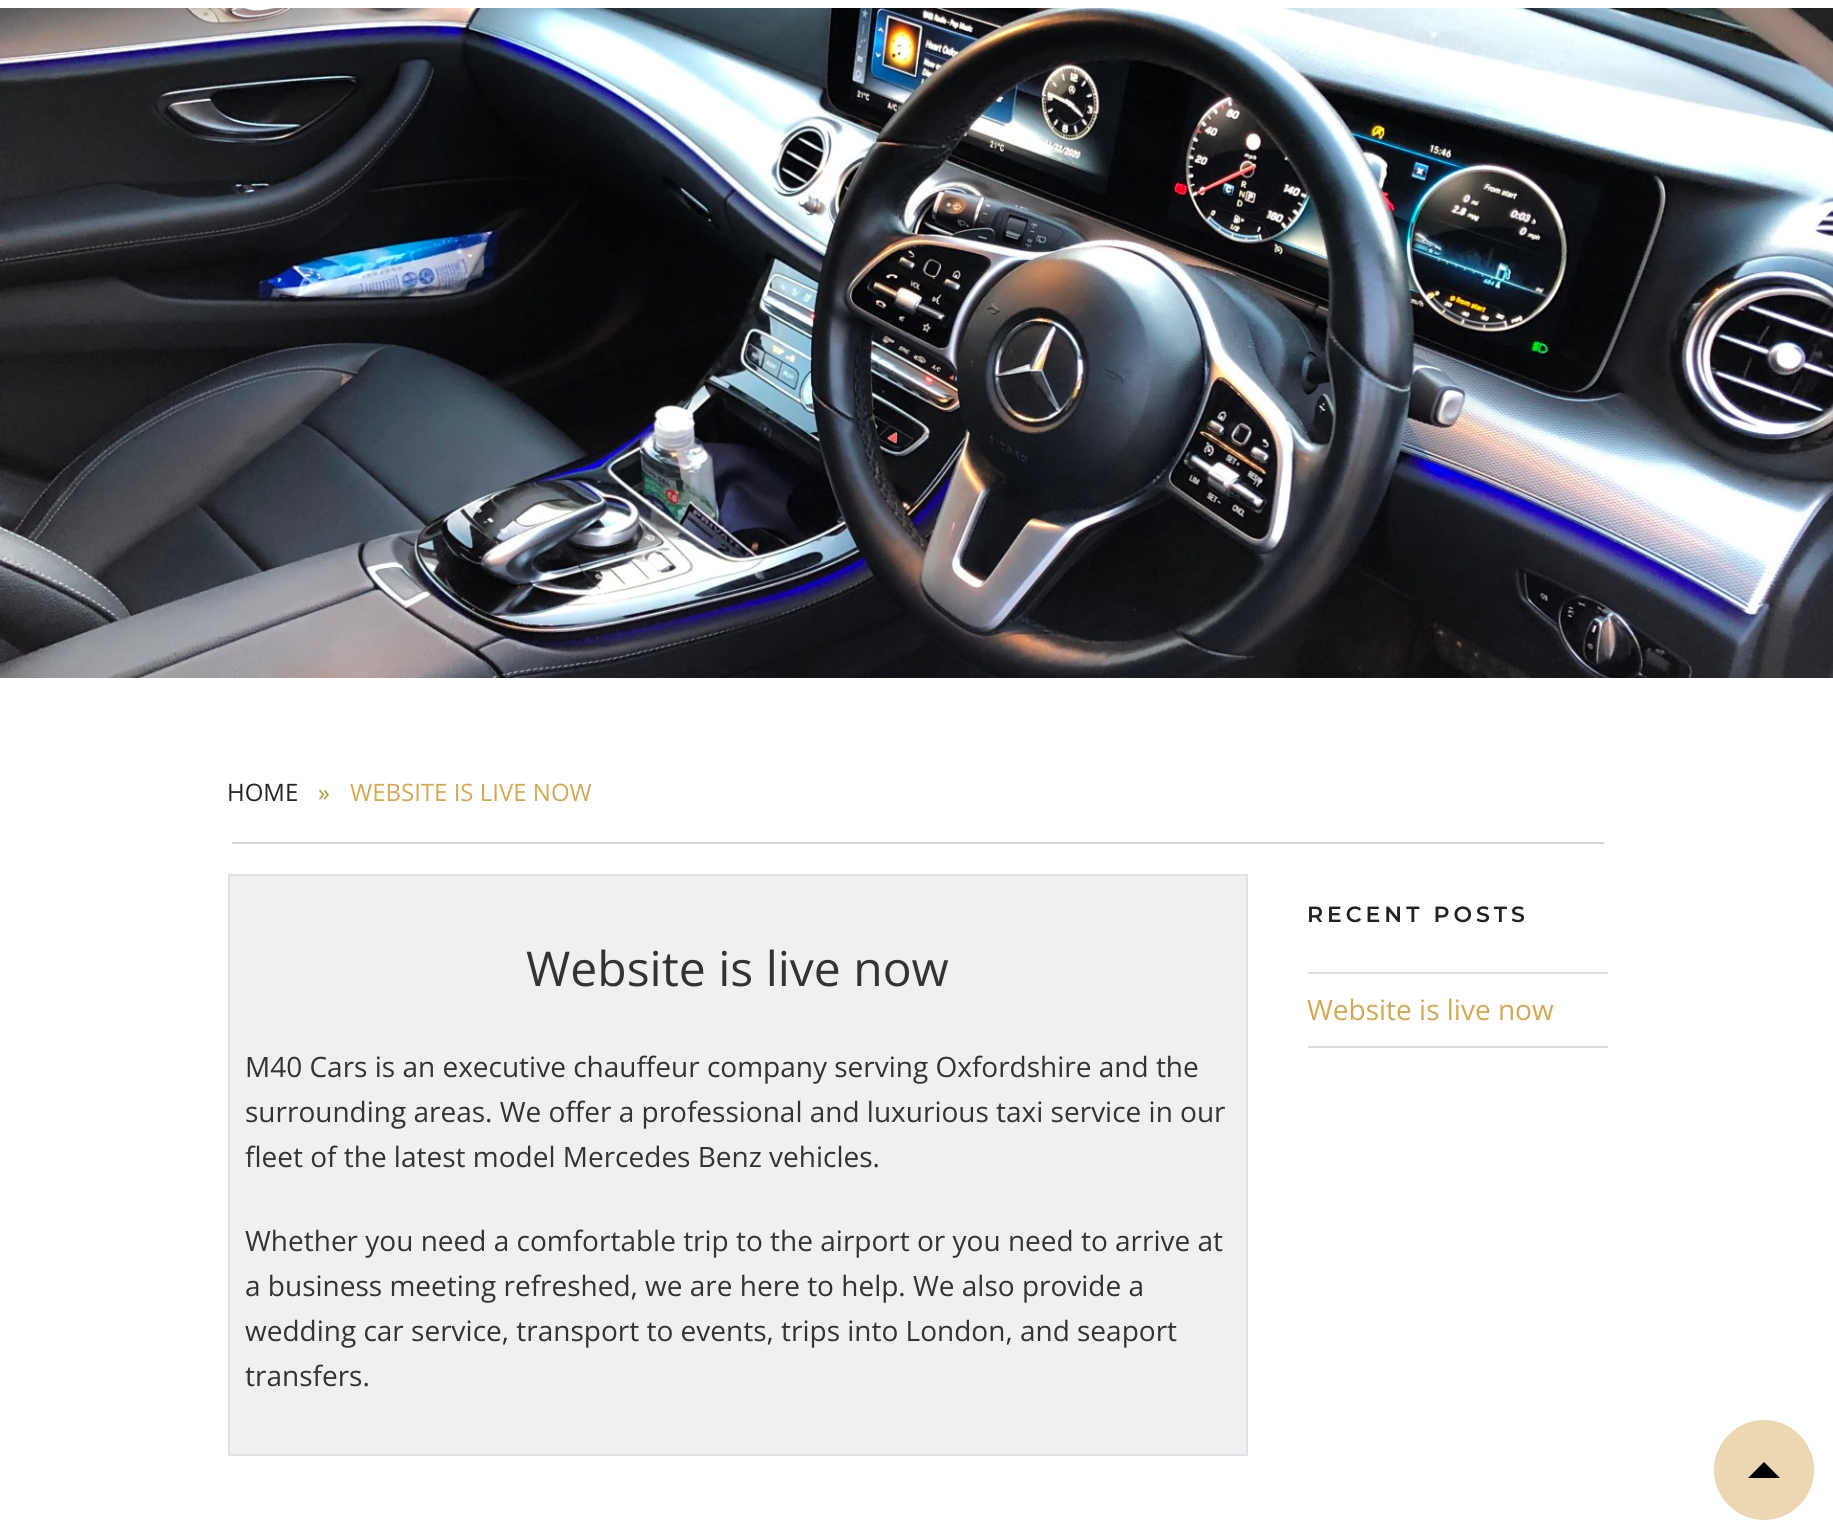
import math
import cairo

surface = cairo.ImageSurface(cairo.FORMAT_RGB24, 1833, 1539)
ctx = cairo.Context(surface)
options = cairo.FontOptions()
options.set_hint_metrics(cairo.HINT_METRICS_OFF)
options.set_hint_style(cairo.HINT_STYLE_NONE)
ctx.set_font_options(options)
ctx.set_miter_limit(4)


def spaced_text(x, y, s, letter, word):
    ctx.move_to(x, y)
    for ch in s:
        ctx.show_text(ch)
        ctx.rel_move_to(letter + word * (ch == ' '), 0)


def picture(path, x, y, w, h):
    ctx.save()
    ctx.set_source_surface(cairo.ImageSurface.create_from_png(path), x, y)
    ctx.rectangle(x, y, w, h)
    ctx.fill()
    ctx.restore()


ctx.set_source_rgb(1, 1, 1)
ctx.paint()
picture("img1.png", 0, 8, 1833, 670)
ctx.set_source_rgb(0.827, 0.827, 0.827)
ctx.rectangle(232, 842, 1372, 2)
ctx.fill()
ctx.select_font_face("Open Sans")
ctx.set_font_size(24)
ctx.set_source_rgb(0.129, 0.145, 0.161)
ctx.move_to(227, 801)
ctx.show_text("HOME")
ctx.set_source_rgb(0.69, 0.627, 0.286)
ctx.move_to(318, 801)
ctx.show_text("»")
ctx.set_source_rgb(0.82, 0.663, 0.337)
ctx.move_to(350, 801)
ctx.show_text("WEBSITE IS LIVE NOW")
ctx.set_source_rgb(0.941, 0.941, 0.941)
ctx.rectangle(229, 875, 1018, 580)
ctx.fill_preserve()
ctx.set_source_rgb(0.871, 0.886, 0.902)
ctx.stroke()
ctx.set_font_size(48)
ctx.set_source_rgb(0.2, 0.2, 0.2)
ctx.move_to(526, 986)
ctx.show_text("Website is live now")
ctx.set_font_size(28)
ctx.move_to(245, 1077)
ctx.show_text("M40 Cars is an executive chauffeur company serving Oxfordshire and the")
ctx.move_to(245, 1122)
ctx.show_text("surrounding areas. We offer a professional and luxurious taxi service in our")
ctx.move_to(245, 1167)
ctx.show_text("fleet of the latest model Mercedes Benz vehicles.")
ctx.move_to(245, 1251)
ctx.show_text("Whether you need a comfortable trip to the airport or you need to arrive at")
ctx.move_to(245, 1296)
ctx.show_text("a business meeting refreshed, we are here to help. We also provide a")
ctx.move_to(245, 1341)
ctx.show_text("wedding car service, transport to events, trips into London, and seaport")
ctx.move_to(245, 1386)
ctx.show_text("transfers.")
ctx.select_font_face("Montserrat SemiBold")
ctx.set_font_size(22)
ctx.set_source_rgb(0.133, 0.133, 0.133)
spaced_text(1307, 922, "RECENT POSTS", 4, 0)
ctx.set_source_rgb(0.867, 0.867, 0.867)
ctx.rectangle(1308, 972, 300, 2)
ctx.fill()
ctx.rectangle(1308, 1046, 300, 2)
ctx.fill()
ctx.select_font_face("Open Sans")
ctx.set_font_size(28)
ctx.set_source_rgb(0.82, 0.663, 0.337)
ctx.move_to(1307, 1020)
ctx.show_text("Website is live now")
ctx.set_source_rgb(0.918, 0.847, 0.702)
ctx.new_path()
ctx.arc(1764, 1470, 50, 0, 2 * math.pi)
ctx.fill()
ctx.set_source_rgb(0, 0, 0)
ctx.new_path()
ctx.move_to(1780, 1478)
ctx.line_to(1748, 1478)
ctx.line_to(1764, 1462)
ctx.close_path()
ctx.fill()
surface.write_to_png("page.png")
